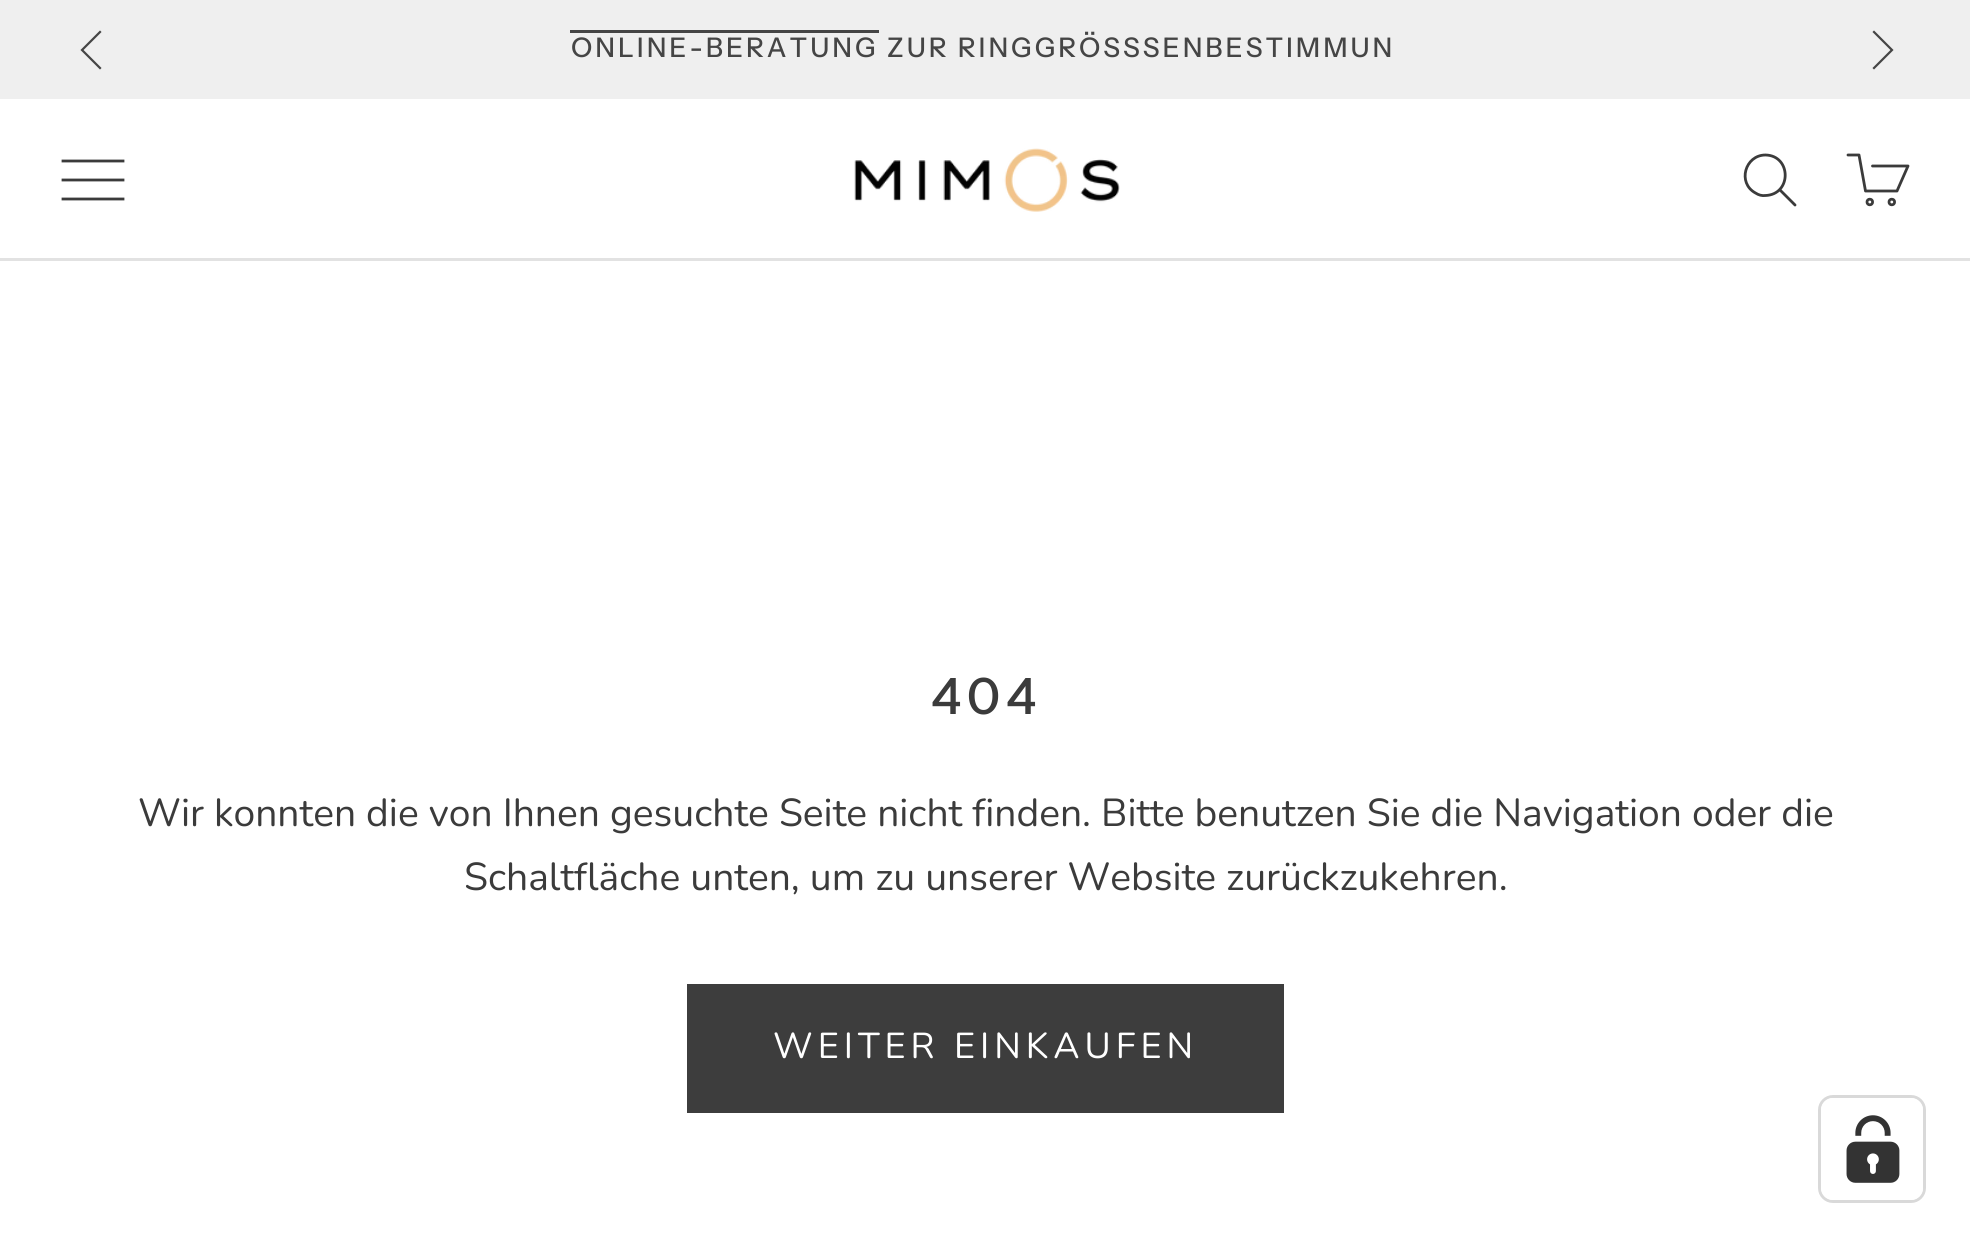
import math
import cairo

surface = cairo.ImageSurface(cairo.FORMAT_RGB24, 1970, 1247)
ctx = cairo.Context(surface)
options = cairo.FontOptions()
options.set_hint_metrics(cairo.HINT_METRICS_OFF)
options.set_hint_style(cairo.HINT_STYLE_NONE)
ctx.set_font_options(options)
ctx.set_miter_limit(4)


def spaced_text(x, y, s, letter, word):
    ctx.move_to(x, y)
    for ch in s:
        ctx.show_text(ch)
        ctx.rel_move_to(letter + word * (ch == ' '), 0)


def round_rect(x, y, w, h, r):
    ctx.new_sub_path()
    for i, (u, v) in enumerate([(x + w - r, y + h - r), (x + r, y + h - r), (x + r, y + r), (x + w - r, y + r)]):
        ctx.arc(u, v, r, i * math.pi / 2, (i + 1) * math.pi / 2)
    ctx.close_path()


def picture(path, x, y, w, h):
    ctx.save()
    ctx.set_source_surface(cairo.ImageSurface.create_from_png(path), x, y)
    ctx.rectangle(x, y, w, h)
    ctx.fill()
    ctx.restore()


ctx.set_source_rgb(1, 1, 1)
ctx.paint()
ctx.set_source_rgb(0.937, 0.937, 0.937)
ctx.rectangle(0, 0, 1970, 99)
ctx.fill()
ctx.new_path()
ctx.move_to(100, 32)
ctx.line_to(82, 50)
ctx.line_to(100, 68)
ctx.set_source_rgb(0.271, 0.271, 0.271)
ctx.set_line_width(2.2)
ctx.set_line_cap(cairo.LINE_CAP_SQUARE)
ctx.stroke()
ctx.rectangle(570, 30, 309, 3)
ctx.fill()
ctx.select_font_face("Instrument Sans Medium")
ctx.set_font_size(27)
spaced_text(571, 57, "ONLINE-BERATUNG ZUR RINGGRÖSSSENBESTIMMUN", 2.95, 0)
ctx.new_path()
ctx.move_to(1874, 68)
ctx.line_to(1892, 50)
ctx.line_to(1874, 32)
ctx.stroke()
ctx.set_source_rgb(0.886, 0.886, 0.886)
ctx.rectangle(0, 258, 1970, 3)
ctx.fill()
ctx.new_path()
ctx.move_to(63, 199)
ctx.line_to(123, 199)
ctx.move_to(63, 180)
ctx.line_to(123, 180)
ctx.move_to(63, 161)
ctx.line_to(123, 161)
ctx.set_source_rgb(0.231, 0.231, 0.231)
ctx.set_line_width(2.8)
ctx.stroke()
picture("img1.png", 854, 148, 266, 64)
ctx.new_path()
ctx.move_to(1765.5, 155)
ctx.curve_to(1745, 155, 1737, 183, 1755.5, 193)
ctx.curve_to(1758.5, 195, 1762, 196, 1765.5, 195.5)
ctx.curve_to(1792, 194.5, 1791.5, 155.5, 1765.5, 155)
ctx.close_path()
ctx.set_line_cap(cairo.LINE_CAP_BUTT)
ctx.stroke()
ctx.new_path()
ctx.move_to(1780.5, 190.5)
ctx.line_to(1795, 205)
ctx.set_line_cap(cairo.LINE_CAP_ROUND)
ctx.stroke()
ctx.new_path()
ctx.move_to(1872.5, 166)
ctx.line_to(1908, 166)
ctx.line_to(1897, 191)
ctx.line_to(1865.5, 191)
ctx.line_to(1859, 155)
ctx.line_to(1848, 155)
ctx.set_line_join(cairo.LINE_JOIN_ROUND)
ctx.stroke()
ctx.arc(1869.8, 202, 2.8, 0, 2 * math.pi)
ctx.set_line_cap(cairo.LINE_CAP_BUTT)
ctx.set_line_join(cairo.LINE_JOIN_MITER)
ctx.stroke()
ctx.arc(1891.8, 202, 2.8, 0, 2 * math.pi)
ctx.stroke()
ctx.set_font_size(50)
spaced_text(931, 714, "404", 5.5, 0)
ctx.select_font_face("Nunito")
ctx.set_font_size(39)
ctx.move_to(138, 826)
ctx.show_text("Wir konnten die von Ihnen gesuchte Seite nicht finden. Bitte benutzen Sie die Navigation oder die")
ctx.move_to(464, 890)
ctx.show_text("Schaltfläche unten, um zu unserer Website zurückzukehren.")
ctx.set_source_rgb(0.239, 0.239, 0.239)
ctx.rectangle(688.5, 985.5, 594, 126)
ctx.fill_preserve()
ctx.set_line_width(3)
ctx.stroke()
ctx.set_font_size(36)
ctx.set_source_rgb(1, 1, 1)
spaced_text(773, 1058, "WEITER EINKAUFEN", 5, 0)
round_rect(1819.5, 1096.5, 105, 105, 13.5)
ctx.set_source_rgb(0.851, 0.851, 0.851)
ctx.stroke()
ctx.set_source_rgb(1, 1, 1)
round_rect(1821, 1098, 102, 102, 12)
ctx.fill()
picture("img2.png", 1846, 1115, 54, 68)
surface.write_to_png("page.png")
